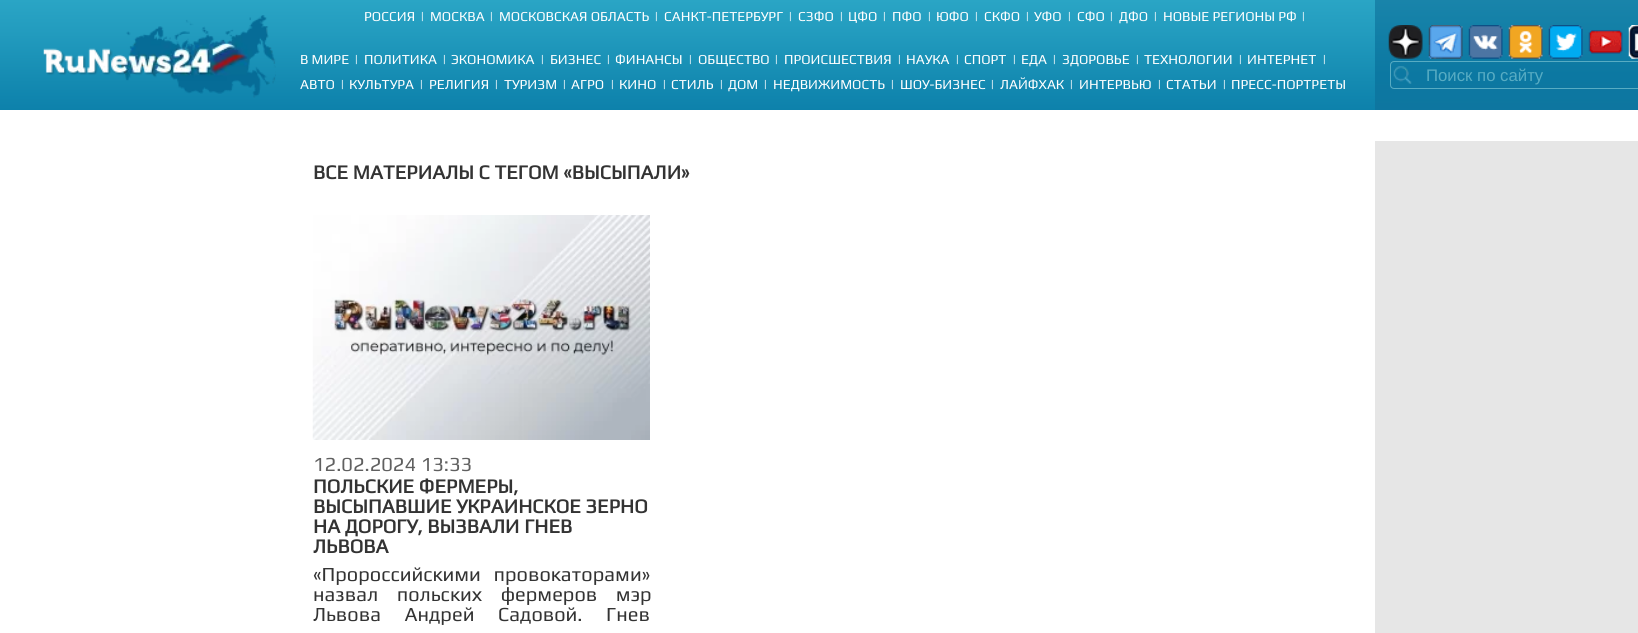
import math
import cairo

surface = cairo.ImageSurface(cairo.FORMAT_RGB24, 1638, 633)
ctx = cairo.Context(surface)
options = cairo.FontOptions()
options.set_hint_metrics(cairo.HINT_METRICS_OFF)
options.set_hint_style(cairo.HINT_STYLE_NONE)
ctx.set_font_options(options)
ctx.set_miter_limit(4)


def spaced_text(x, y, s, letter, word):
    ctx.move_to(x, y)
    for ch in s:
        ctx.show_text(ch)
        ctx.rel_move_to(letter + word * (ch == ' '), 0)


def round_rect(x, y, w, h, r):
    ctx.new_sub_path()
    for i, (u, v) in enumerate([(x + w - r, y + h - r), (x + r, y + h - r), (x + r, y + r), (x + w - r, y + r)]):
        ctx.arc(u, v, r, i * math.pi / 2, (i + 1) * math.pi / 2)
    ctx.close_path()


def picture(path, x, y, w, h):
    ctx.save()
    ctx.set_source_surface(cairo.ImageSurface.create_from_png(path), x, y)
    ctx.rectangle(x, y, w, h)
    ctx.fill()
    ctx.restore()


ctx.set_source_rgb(1, 1, 1)
ctx.paint()
gradient = cairo.LinearGradient(838, 0, 838, 110)
gradient.add_color_stop_rgba(0, 0.165, 0.647, 0.773, 1)
gradient.add_color_stop_rgba(0.31, 0.133, 0.608, 0.745, 1)
gradient.add_color_stop_rgba(0.72, 0.082, 0.545, 0.698, 1)
gradient.add_color_stop_rgba(1, 0.051, 0.506, 0.671, 1)
ctx.set_source(gradient)
ctx.rectangle(0, 0, 1375, 110)
ctx.fill()
picture("img1.png", 43, 15, 233, 83)
ctx.select_font_face("Play")
ctx.set_font_size(13.75)
ctx.set_source_rgb(1, 1, 1)
ctx.move_to(364, 21)
ctx.show_text("РОССИЯ")
ctx.move_to(420, 21)
ctx.show_text("|")
ctx.move_to(430, 21)
ctx.show_text("МОСКВА")
ctx.move_to(489, 21)
ctx.show_text("|")
ctx.move_to(499, 21)
ctx.show_text("МОСКОВСКАЯ ОБЛАСТЬ")
ctx.move_to(654, 21)
ctx.show_text("|")
ctx.move_to(664, 21)
ctx.show_text("САНКТ-ПЕТЕРБУРГ")
ctx.move_to(788, 21)
ctx.show_text("|")
ctx.move_to(798, 21)
ctx.show_text("СЗФО")
ctx.move_to(839, 21)
ctx.show_text("|")
ctx.move_to(848, 21)
ctx.show_text("ЦФО")
ctx.move_to(882, 21)
ctx.show_text("|")
ctx.move_to(892, 21)
ctx.show_text("ПФО")
ctx.move_to(927, 21)
ctx.show_text("|")
ctx.move_to(936, 21)
ctx.show_text("ЮФО")
ctx.move_to(974, 21)
ctx.show_text("|")
ctx.move_to(984, 21)
ctx.show_text("СКФО")
ctx.move_to(1025, 21)
ctx.show_text("|")
ctx.move_to(1034, 21)
ctx.show_text("УФО")
ctx.move_to(1067, 21)
ctx.show_text("|")
ctx.move_to(1077, 21)
ctx.show_text("СФО")
ctx.move_to(1109, 21)
ctx.show_text("|")
ctx.move_to(1119, 21)
ctx.show_text("ДФО")
ctx.move_to(1153, 21)
ctx.show_text("|")
ctx.move_to(1163, 21)
ctx.show_text("НОВЫЕ РЕГИОНЫ РФ")
ctx.move_to(1301, 21)
ctx.show_text("|")
ctx.move_to(300, 64)
ctx.show_text("В МИРЕ")
ctx.move_to(354, 64)
ctx.show_text("|")
ctx.move_to(364, 64)
ctx.show_text("ПОЛИТИКА")
ctx.move_to(442, 64)
ctx.show_text("|")
ctx.move_to(451, 64)
ctx.show_text("ЭКОНОМИКА")
ctx.move_to(540, 64)
ctx.show_text("|")
ctx.move_to(550, 64)
ctx.show_text("БИЗНЕС")
ctx.move_to(606, 64)
ctx.show_text("|")
ctx.move_to(615, 64)
ctx.show_text("ФИНАНСЫ")
ctx.move_to(688, 64)
ctx.show_text("|")
ctx.move_to(698, 64)
ctx.show_text("ОБЩЕСТВО")
ctx.move_to(774, 64)
ctx.show_text("|")
ctx.move_to(784, 64)
ctx.show_text("ПРОИСШЕСТВИЯ")
ctx.move_to(897, 64)
ctx.show_text("|")
ctx.move_to(906, 64)
ctx.show_text("НАУКА")
ctx.move_to(955, 64)
ctx.show_text("|")
ctx.move_to(964, 64)
ctx.show_text("СПОРТ")
ctx.move_to(1012, 64)
ctx.show_text("|")
ctx.move_to(1021, 64)
ctx.show_text("ЕДА")
ctx.move_to(1052, 64)
ctx.show_text("|")
ctx.move_to(1062, 64)
ctx.show_text("ЗДОРОВЬЕ")
ctx.move_to(1135, 64)
ctx.show_text("|")
ctx.move_to(1144, 64)
ctx.show_text("ТЕХНОЛОГИИ")
ctx.move_to(1238, 64)
ctx.show_text("|")
ctx.move_to(1247, 64)
ctx.show_text("ИНТЕРНЕТ")
ctx.move_to(1322, 64)
ctx.show_text("|")
ctx.move_to(300, 89)
ctx.show_text("АВТО")
ctx.move_to(340, 89)
ctx.show_text("|")
ctx.move_to(349, 89)
ctx.show_text("КУЛЬТУРА")
ctx.move_to(419, 89)
ctx.show_text("|")
ctx.move_to(429, 89)
ctx.show_text("РЕЛИГИЯ")
ctx.move_to(494, 89)
ctx.show_text("|")
ctx.move_to(504, 89)
ctx.show_text("ТУРИЗМ")
ctx.move_to(562, 89)
ctx.show_text("|")
ctx.move_to(571, 89)
ctx.show_text("АГРО")
ctx.move_to(610, 89)
ctx.show_text("|")
ctx.move_to(619, 89)
ctx.show_text("КИНО")
ctx.move_to(662, 89)
ctx.show_text("|")
ctx.move_to(671, 89)
ctx.show_text("СТИЛЬ")
ctx.move_to(719, 89)
ctx.show_text("|")
ctx.move_to(728, 89)
ctx.show_text("ДОМ")
ctx.move_to(763, 89)
ctx.show_text("|")
ctx.move_to(773, 89)
ctx.show_text("НЕДВИЖИМОСТЬ")
ctx.move_to(890, 89)
ctx.show_text("|")
ctx.move_to(900, 89)
ctx.show_text("ШОУ-БИЗНЕС")
ctx.move_to(990, 89)
ctx.show_text("|")
ctx.move_to(1000, 89)
ctx.show_text("ЛАЙФХАК")
ctx.move_to(1069, 89)
ctx.show_text("|")
ctx.move_to(1079, 89)
ctx.show_text("ИНТЕРВЬЮ")
ctx.move_to(1157, 89)
ctx.show_text("|")
ctx.move_to(1166, 89)
ctx.show_text("СТАТЬИ")
ctx.move_to(1222, 89)
ctx.show_text("|")
ctx.move_to(1231, 89)
ctx.show_text("ПРЕСС-ПОРТРЕТЫ")
gradient = cairo.LinearGradient(1525, 0, 1525, 110)
gradient.add_color_stop_rgba(0, 0.098, 0.518, 0.667, 1)
gradient.add_color_stop_rgba(0.35, 0.067, 0.494, 0.651, 1)
gradient.add_color_stop_rgba(0.68, 0.047, 0.471, 0.635, 1)
gradient.add_color_stop_rgba(1, 0.055, 0.463, 0.627, 1)
ctx.set_source(gradient)
ctx.rectangle(1375, 0, 263, 110)
ctx.fill()
picture("img2.png", 1388, 25, 35, 34)
picture("img3.png", 1428, 25, 35, 34)
picture("img4.png", 1468, 25, 35, 34)
picture("img5.png", 1508, 25, 35, 34)
picture("img6.png", 1548, 25, 35, 34)
picture("img7.png", 1588, 30, 35, 24)
picture("img8.png", 1628, 25, 10, 34)
round_rect(1390.5, 61.5, 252, 27, 3.5)
ctx.set_source_rgb(0.341, 0.675, 0.765)
ctx.set_line_width(1)
ctx.stroke()
picture("img9.png", 1393, 66, 19, 18)
ctx.select_font_face("Liberation Sans")
ctx.set_font_size(16.75)
ctx.move_to(1426, 81)
ctx.show_text("Поиск по сайту")
ctx.select_font_face("Play", cairo.FONT_SLANT_NORMAL, cairo.FONT_WEIGHT_BOLD)
ctx.set_font_size(20)
ctx.set_source_rgb(0.2, 0.2, 0.2)
ctx.move_to(313, 179)
ctx.show_text("ВСЕ МАТЕРИАЛЫ С ТЕГОМ «ВЫСЫПАЛИ»")
picture("img10.png", 312, 215, 338, 225)
ctx.select_font_face("Play")
ctx.set_source_rgb(0.376, 0.376, 0.376)
ctx.move_to(313, 471)
ctx.show_text("12.02.2024 13:33")
ctx.select_font_face("Play", cairo.FONT_SLANT_NORMAL, cairo.FONT_WEIGHT_BOLD)
ctx.set_source_rgb(0.2, 0.2, 0.2)
ctx.move_to(313, 493)
ctx.show_text("ПОЛЬСКИЕ ФЕРМЕРЫ,")
ctx.move_to(313, 513)
ctx.show_text("ВЫСЫПАВШИЕ УКРАИНСКОЕ ЗЕРНО")
ctx.move_to(313, 533)
ctx.show_text("НА ДОРОГУ, ВЫЗВАЛИ ГНЕВ")
ctx.move_to(313, 553)
ctx.show_text("ЛЬВОВА")
ctx.select_font_face("Play")
spaced_text(313, 581, "«Пророссийскими провокаторами»", 0, 8)
spaced_text(313, 601, "назвал польских фермеров мэр", 0, 14)
spaced_text(313, 621, "Львова Андрей Садовой. Гнев", 0, 19)
ctx.set_source_rgb(0.902, 0.902, 0.902)
ctx.rectangle(1375, 141, 263, 492)
ctx.fill()
surface.write_to_png("page.png")
